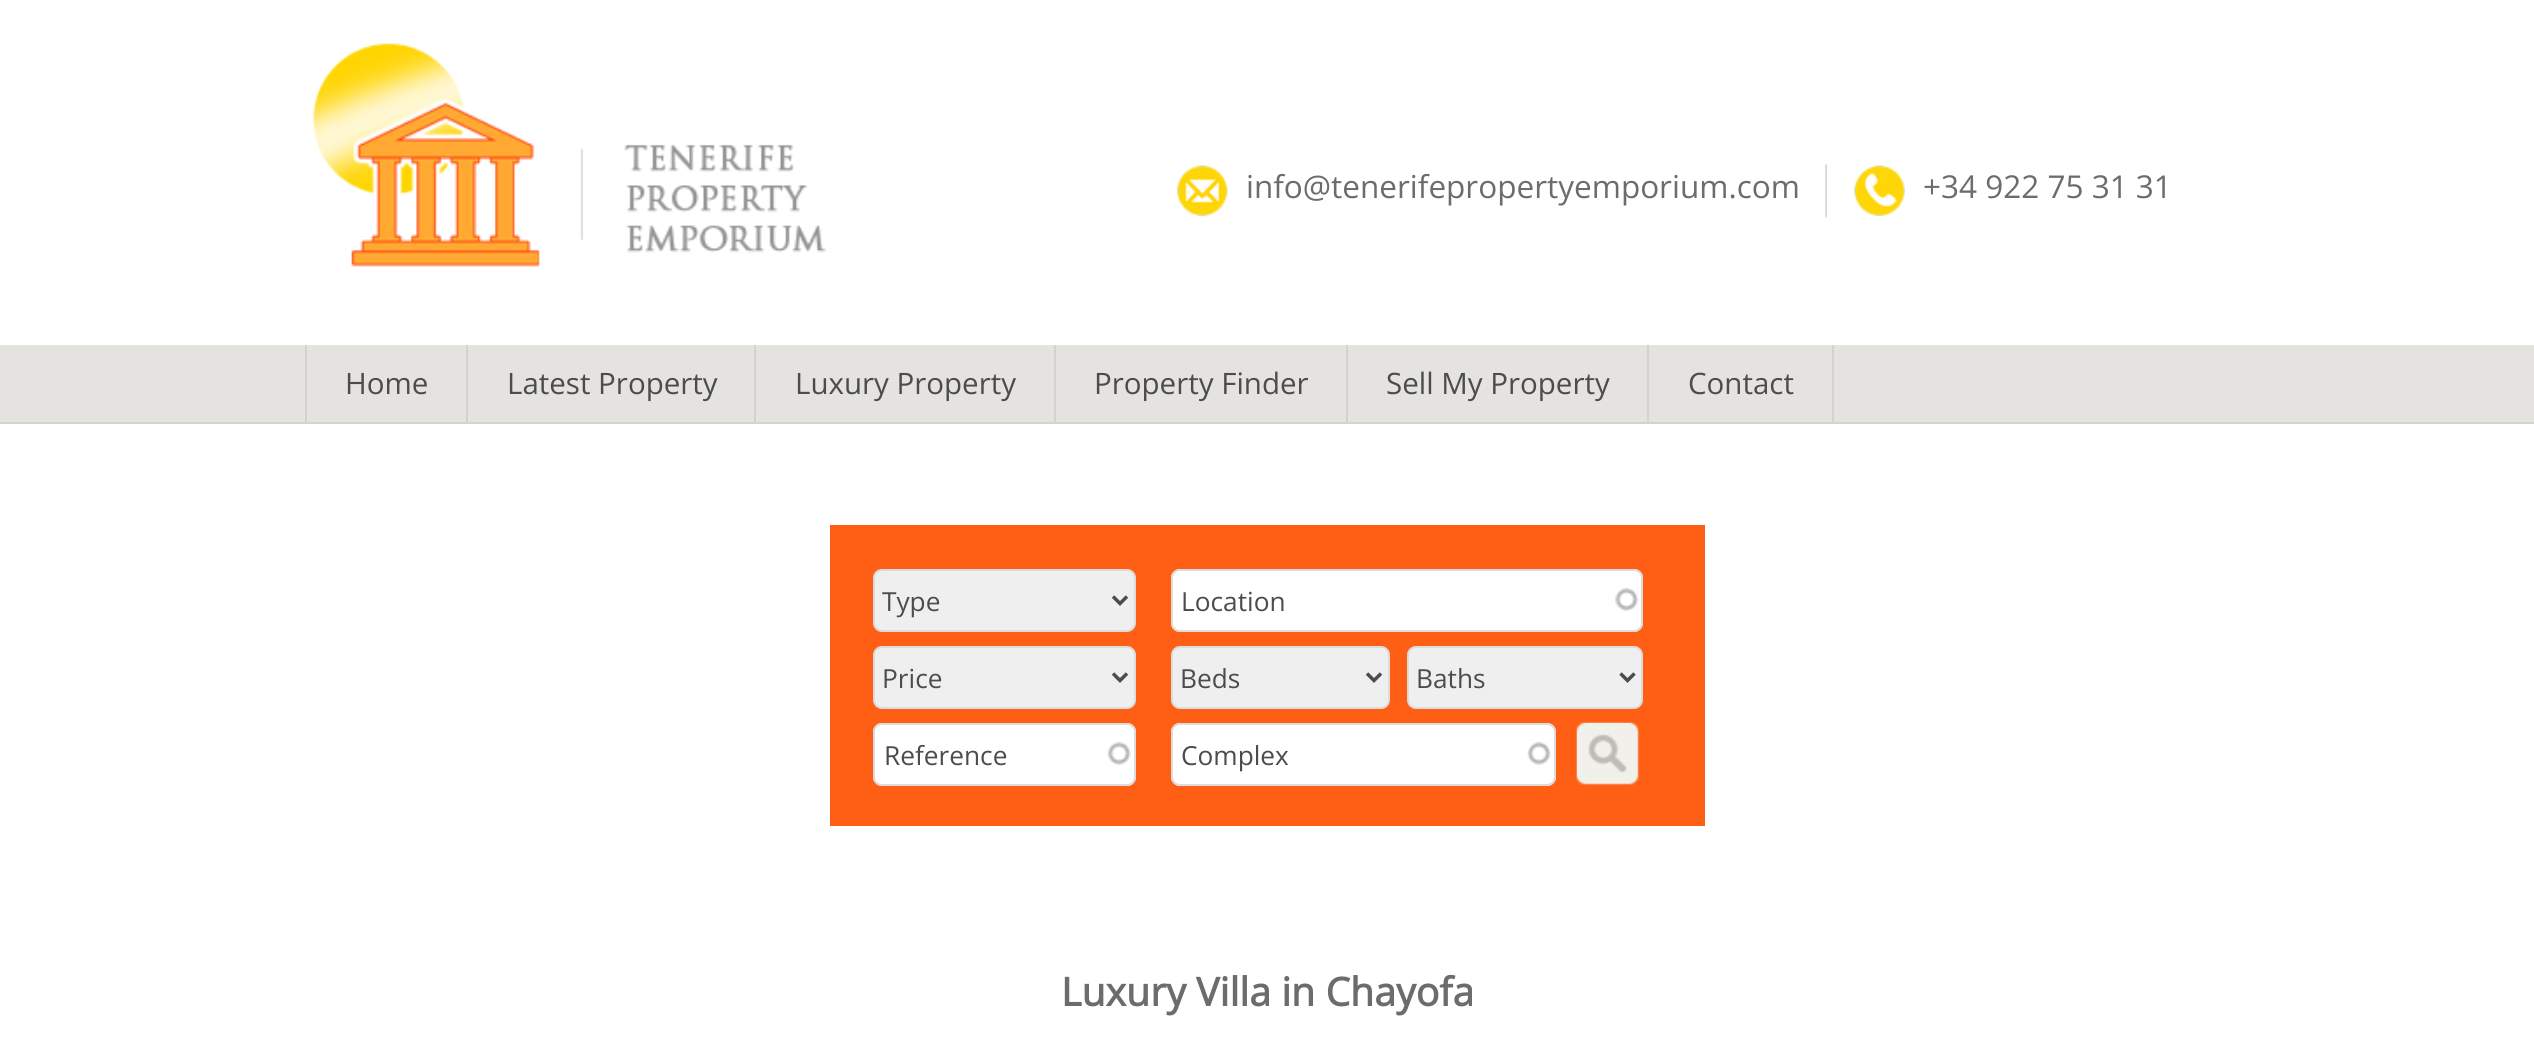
import math
import cairo

surface = cairo.ImageSurface(cairo.FORMAT_RGB24, 2534, 1044)
ctx = cairo.Context(surface)
options = cairo.FontOptions()
options.set_hint_metrics(cairo.HINT_METRICS_OFF)
options.set_hint_style(cairo.HINT_STYLE_NONE)
ctx.set_font_options(options)
ctx.set_miter_limit(4)


def round_rect(x, y, w, h, r):
    ctx.new_sub_path()
    for i, (u, v) in enumerate([(x + w - r, y + h - r), (x + r, y + h - r), (x + r, y + r), (x + w - r, y + r)]):
        ctx.arc(u, v, r, i * math.pi / 2, (i + 1) * math.pi / 2)
    ctx.close_path()


def picture(path, x, y, w, h):
    ctx.save()
    ctx.set_source_surface(cairo.ImageSurface.create_from_png(path), x, y)
    ctx.rectangle(x, y, w, h)
    ctx.fill()
    ctx.restore()


ctx.set_source_rgb(1, 1, 1)
ctx.paint()
picture("img1.png", 312, 43, 515, 224)
picture("img2.png", 1176, 165, 52, 52)
ctx.select_font_face("Open Sans")
ctx.set_font_size(31.5)
ctx.set_source_rgb(0.424, 0.424, 0.424)
ctx.move_to(1246, 198)
ctx.show_text("info@tenerifepropertyemporium.com")
picture("img3.png", 1825, 164, 2, 54)
picture("img4.png", 1854, 165, 51, 52)
ctx.move_to(1923, 198)
ctx.show_text("+34 922 75 31 31")
ctx.set_source_rgb(0.894, 0.89, 0.875)
ctx.rectangle(0, 345, 2534, 77)
ctx.fill()
ctx.set_source_rgb(0.831, 0.824, 0.804)
ctx.rectangle(0, 422, 2534, 2)
ctx.fill()
ctx.rectangle(305, 345, 2, 77)
ctx.fill()
ctx.set_font_size(29.5)
ctx.set_source_rgb(0.298, 0.298, 0.298)
ctx.move_to(345, 394)
ctx.show_text("Home")
ctx.set_source_rgb(0.831, 0.824, 0.804)
ctx.rectangle(466, 345, 2, 77)
ctx.fill()
ctx.set_source_rgb(0.298, 0.298, 0.298)
ctx.move_to(507, 394)
ctx.show_text("Latest Property")
ctx.set_source_rgb(0.831, 0.824, 0.804)
ctx.rectangle(754, 345, 2, 77)
ctx.fill()
ctx.set_source_rgb(0.298, 0.298, 0.298)
ctx.move_to(795, 394)
ctx.show_text("Luxury Property")
ctx.set_source_rgb(0.831, 0.824, 0.804)
ctx.rectangle(1054, 345, 2, 77)
ctx.fill()
ctx.set_source_rgb(0.298, 0.298, 0.298)
ctx.move_to(1094, 394)
ctx.show_text("Property Finder")
ctx.set_source_rgb(0.831, 0.824, 0.804)
ctx.rectangle(1346, 345, 2, 77)
ctx.fill()
ctx.set_source_rgb(0.298, 0.298, 0.298)
ctx.move_to(1386, 394)
ctx.show_text("Sell My Property")
ctx.set_source_rgb(0.831, 0.824, 0.804)
ctx.rectangle(1832, 345, 2, 77)
ctx.fill()
ctx.rectangle(1647, 345, 2, 77)
ctx.fill()
ctx.set_source_rgb(0.298, 0.298, 0.298)
ctx.move_to(1688, 394)
ctx.show_text("Contact")
ctx.set_source_rgb(1, 0.373, 0.082)
ctx.rectangle(830, 525, 875, 301)
ctx.fill()
ctx.set_source_rgb(0.937, 0.937, 0.937)
round_rect(874, 570, 261, 61, 8)
ctx.fill_preserve()
ctx.set_source_rgb(0.863, 0.863, 0.863)
ctx.stroke()
ctx.new_path()
ctx.move_to(1113, 596.5)
ctx.line_to(1120, 603.5)
ctx.line_to(1127, 596.5)
ctx.set_source_rgb(0.298, 0.298, 0.298)
ctx.set_line_width(3.5)
ctx.stroke()
ctx.set_font_size(26.25)
ctx.move_to(882, 611)
ctx.show_text("Type")
ctx.set_source_rgb(1, 1, 1)
round_rect(1171, 569, 472, 63, 9)
ctx.fill()
picture("img5.png", 1615, 588, 24, 23)
round_rect(1172, 570, 470, 61, 8)
ctx.set_source_rgb(0.863, 0.863, 0.863)
ctx.set_line_width(2)
ctx.stroke()
ctx.set_source_rgb(0.298, 0.298, 0.298)
ctx.move_to(1181, 611)
ctx.show_text("Location")
ctx.set_source_rgb(0.937, 0.937, 0.937)
round_rect(874, 647, 261, 61, 8)
ctx.fill_preserve()
ctx.set_source_rgb(0.863, 0.863, 0.863)
ctx.stroke()
ctx.new_path()
ctx.move_to(1113, 673.5)
ctx.line_to(1120, 680.5)
ctx.line_to(1127, 673.5)
ctx.set_source_rgb(0.298, 0.298, 0.298)
ctx.set_line_width(3.5)
ctx.stroke()
ctx.move_to(882, 688)
ctx.show_text("Price")
ctx.set_source_rgb(0.937, 0.937, 0.937)
round_rect(1172, 647, 217, 61, 8)
ctx.fill_preserve()
ctx.set_source_rgb(0.863, 0.863, 0.863)
ctx.set_line_width(2)
ctx.stroke()
ctx.new_path()
ctx.move_to(1367, 673.5)
ctx.line_to(1374, 680.5)
ctx.line_to(1381, 673.5)
ctx.set_source_rgb(0.298, 0.298, 0.298)
ctx.set_line_width(3.5)
ctx.stroke()
ctx.move_to(1180, 688)
ctx.show_text("Beds")
ctx.set_source_rgb(0.937, 0.937, 0.937)
round_rect(1408, 647, 234, 61, 8)
ctx.fill_preserve()
ctx.set_source_rgb(0.863, 0.863, 0.863)
ctx.set_line_width(2)
ctx.stroke()
ctx.new_path()
ctx.move_to(1620.5, 673.5)
ctx.line_to(1627.5, 680.5)
ctx.line_to(1634.5, 673.5)
ctx.set_source_rgb(0.298, 0.298, 0.298)
ctx.set_line_width(3.5)
ctx.stroke()
ctx.move_to(1416, 688)
ctx.show_text("Baths")
ctx.set_source_rgb(1, 1, 1)
round_rect(873, 723, 263, 63, 9)
ctx.fill()
picture("img6.png", 1107, 742, 24, 23)
round_rect(874, 724, 261, 61, 8)
ctx.set_source_rgb(0.863, 0.863, 0.863)
ctx.set_line_width(2)
ctx.stroke()
ctx.set_source_rgb(0.298, 0.298, 0.298)
ctx.move_to(884, 765)
ctx.show_text("Reference")
ctx.set_source_rgb(1, 1, 1)
round_rect(1171, 723, 385, 63, 9)
ctx.fill()
picture("img7.png", 1527, 742, 24, 23)
round_rect(1172, 724, 383, 61, 8)
ctx.set_source_rgb(0.863, 0.863, 0.863)
ctx.stroke()
ctx.set_source_rgb(0.298, 0.298, 0.298)
ctx.move_to(1181, 765)
ctx.show_text("Complex")
picture("img8.png", 1576, 722, 63, 63)
ctx.select_font_face("Open Sans", cairo.FONT_SLANT_NORMAL, cairo.FONT_WEIGHT_BOLD)
ctx.set_font_size(39.25)
ctx.set_source_rgb(0.424, 0.424, 0.424)
ctx.move_to(1061, 1006)
ctx.show_text("Luxury Villa in Chayofa")
surface.write_to_png("page.png")
